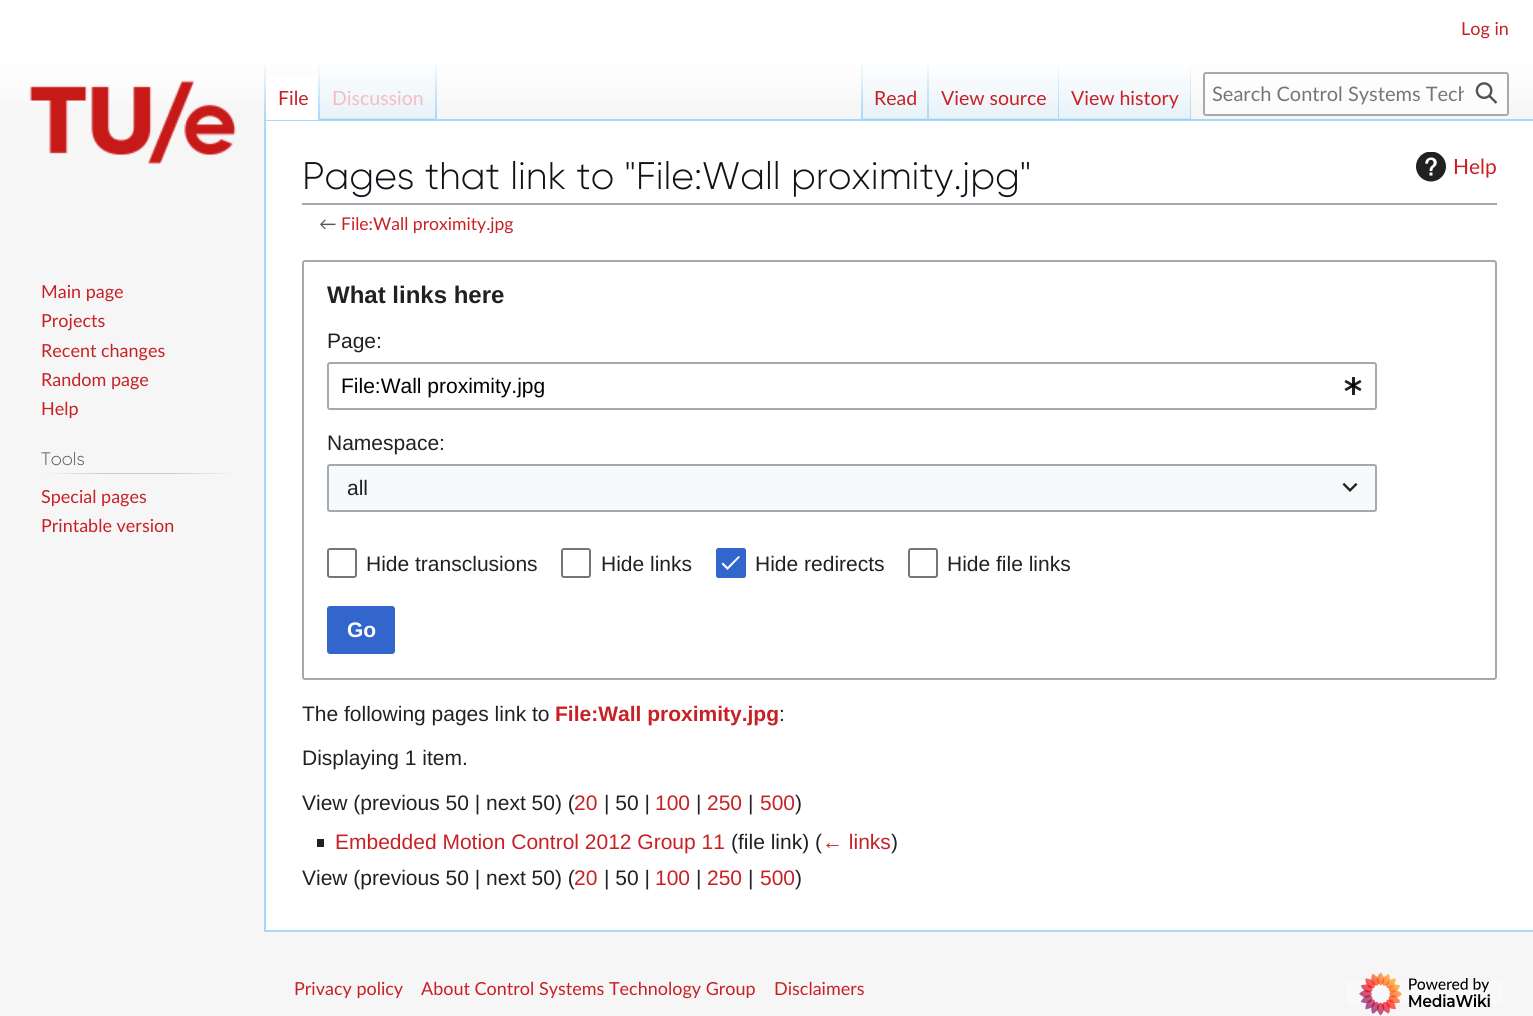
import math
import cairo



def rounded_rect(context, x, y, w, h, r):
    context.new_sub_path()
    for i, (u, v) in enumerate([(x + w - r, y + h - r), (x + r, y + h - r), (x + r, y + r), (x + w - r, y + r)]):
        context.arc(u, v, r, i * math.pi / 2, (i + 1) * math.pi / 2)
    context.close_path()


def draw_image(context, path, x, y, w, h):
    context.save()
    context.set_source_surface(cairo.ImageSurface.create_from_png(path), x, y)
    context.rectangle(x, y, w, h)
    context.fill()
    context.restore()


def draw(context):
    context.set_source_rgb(246 / 255, 246 / 255, 246 / 255)
    context.paint()
    gradient = cairo.LinearGradient(767, 0, 767, 120)
    gradient.add_color_stop_rgba(0.5, 1, 1, 1, 1)
    gradient.add_color_stop_rgba(1, 246 / 255, 246 / 255, 246 / 255, 1)
    context.set_source(gradient)
    context.rectangle(0, 0, 1533, 103)
    context.fill()
    context.set_source_rgb(167 / 255, 215 / 255, 249 / 255)
    context.rectangle(264, 119, 1269, 2)
    context.fill()
    context.rectangle(264, 930, 1269, 2)
    context.fill()
    context.rectangle(264, 119, 2, 813)
    context.fill()
    gradient = cairo.LinearGradient(265, 60, 265, 120)
    gradient.add_color_stop_rgba(0, 167 / 255, 215 / 255, 249 / 255, 0)
    gradient.add_color_stop_rgba(1, 167 / 255, 215 / 255, 249 / 255, 1)
    context.set_source(gradient)
    context.rectangle(264, 60, 2, 60)
    context.fill()
    context.set_source_rgb(1, 1, 1)
    context.rectangle(266, 77, 52, 43)
    context.fill()
    gradient = cairo.LinearGradient(319, 60, 319, 120)
    gradient.add_color_stop_rgba(0, 1, 1, 1, 1)
    gradient.add_color_stop_rgba(1, 167 / 255, 215 / 255, 249 / 255, 1)
    context.set_source(gradient)
    context.rectangle(318, 60, 2, 60)
    context.fill()
    gradient = cairo.LinearGradient(378, 120, 378, 60)
    gradient.add_color_stop_rgba(0, 119 / 255, 193 / 255, 246 / 255, 1)
    gradient.add_color_stop_rgba(0.03, 232 / 255, 242 / 255, 248 / 255, 1)
    gradient.add_color_stop_rgba(1, 1, 1, 1, 1)
    context.set_source(gradient)
    context.rectangle(320, 69, 117, 51)
    context.fill()
    gradient = cairo.LinearGradient(436, 60, 436, 120)
    gradient.add_color_stop_rgba(0, 167 / 255, 215 / 255, 249 / 255, 0)
    gradient.add_color_stop_rgba(1, 167 / 255, 215 / 255, 249 / 255, 1)
    context.set_source(gradient)
    context.rectangle(435, 60, 2, 60)
    context.fill()
    gradient = cairo.LinearGradient(862, 60, 862, 120)
    gradient.add_color_stop_rgba(0, 167 / 255, 215 / 255, 249 / 255, 0)
    gradient.add_color_stop_rgba(1, 167 / 255, 215 / 255, 249 / 255, 1)
    context.set_source(gradient)
    context.rectangle(861, 60, 2, 60)
    context.fill()
    gradient = cairo.LinearGradient(896, 120, 896, 60)
    gradient.add_color_stop_rgba(0, 119 / 255, 193 / 255, 246 / 255, 1)
    gradient.add_color_stop_rgba(0.03, 232 / 255, 242 / 255, 248 / 255, 1)
    gradient.add_color_stop_rgba(1, 1, 1, 1, 1)
    context.set_source(gradient)
    context.rectangle(863, 69, 66, 51)
    context.fill()
    gradient = cairo.LinearGradient(928, 60, 928, 120)
    gradient.add_color_stop_rgba(0, 167 / 255, 215 / 255, 249 / 255, 0)
    gradient.add_color_stop_rgba(1, 167 / 255, 215 / 255, 249 / 255, 1)
    context.set_source(gradient)
    context.rectangle(927, 60, 2, 60)
    context.fill()
    gradient = cairo.LinearGradient(994, 120, 994, 60)
    gradient.add_color_stop_rgba(0, 119 / 255, 193 / 255, 246 / 255, 1)
    gradient.add_color_stop_rgba(0.03, 232 / 255, 242 / 255, 248 / 255, 1)
    gradient.add_color_stop_rgba(1, 1, 1, 1, 1)
    context.set_source(gradient)
    context.rectangle(929, 69, 130, 51)
    context.fill()
    gradient = cairo.LinearGradient(1058, 60, 1058, 120)
    gradient.add_color_stop_rgba(0, 167 / 255, 215 / 255, 249 / 255, 0)
    gradient.add_color_stop_rgba(1, 167 / 255, 215 / 255, 249 / 255, 1)
    context.set_source(gradient)
    context.rectangle(1058, 60, 1, 60)
    context.fill()
    gradient = cairo.LinearGradient(1125, 120, 1125, 60)
    gradient.add_color_stop_rgba(0, 119 / 255, 193 / 255, 246 / 255, 1)
    gradient.add_color_stop_rgba(0.03, 232 / 255, 242 / 255, 248 / 255, 1)
    gradient.add_color_stop_rgba(1, 1, 1, 1, 1)
    context.set_source(gradient)
    context.rectangle(1059, 69, 132, 51)
    context.fill()
    gradient = cairo.LinearGradient(1190, 60, 1190, 120)
    gradient.add_color_stop_rgba(0, 167 / 255, 215 / 255, 249 / 255, 0)
    gradient.add_color_stop_rgba(1, 167 / 255, 215 / 255, 249 / 255, 1)
    context.set_source(gradient)
    context.rectangle(1190, 60, 1, 60)
    context.fill()
    context.set_source_rgba(1, 1, 1, 0.5)
    rounded_rect(context, 1204, 73, 304, 42, 2)
    context.fill_preserve()
    context.set_source_rgb(162 / 255, 169 / 255, 177 / 255)
    context.stroke()
    draw_image(context, "images/1.png", 1475, 82, 23, 22)
    draw_image(context, "images/2.png", 29, 80, 207, 84)
    gradient = cairo.LinearGradient(41, 473, 237, 473)
    gradient.add_color_stop_rgba(0, 246 / 255, 246 / 255, 246 / 255, 1)
    gradient.add_color_stop_rgba(0.33, 200 / 255, 204 / 255, 209 / 255, 1)
    gradient.add_color_stop_rgba(0.66, 200 / 255, 204 / 255, 209 / 255, 1)
    gradient.add_color_stop_rgba(1, 246 / 255, 246 / 255, 246 / 255, 1)
    context.set_source(gradient)
    context.rectangle(41, 473, 196, 1)
    context.fill()
    context.set_source_rgb(1, 1, 1)
    context.rectangle(266, 121, 1267, 809)
    context.fill()
    context.set_source_rgb(162 / 255, 169 / 255, 177 / 255)
    context.rectangle(302, 203, 1195, 2)
    context.fill()
    draw_image(context, "images/3.png", 1416, 152, 30, 30)
    rounded_rect(context, 303, 261, 1193, 418, 2)
    context.stroke()
    rounded_rect(context, 328, 363, 1048, 46, 2)
    context.stroke()
    draw_image(context, "images/4.png", 1344, 377, 18, 18)
    context.set_source_rgb(248 / 255, 249 / 255, 250 / 255)
    context.rectangle(327, 464, 1050, 48)
    context.fill()
    rounded_rect(context, 328, 465, 1048, 46, 2)
    context.set_source_rgb(162 / 255, 169 / 255, 177 / 255)
    context.stroke()
    draw_image(context, "images/5.png", 1342, 483, 16, 9)
    rounded_rect(context, 328, 549, 28, 28, 2)
    context.set_source_rgb(114 / 255, 119 / 255, 125 / 255)
    context.stroke()
    rounded_rect(context, 562, 549, 28, 28, 2)
    context.stroke()
    context.set_source_rgb(51 / 255, 102 / 255, 204 / 255)
    rounded_rect(context, 716, 548, 30, 30, 3)
    context.fill()
    context.set_source_rgb(1, 1, 1)
    context.new_path()
    context.move_to(727.5, 567)
    context.line_to(723, 562.5)
    context.line_to(721.5, 564)
    context.line_to(727.5, 570)
    context.line_to(740, 557)
    context.line_to(738.5, 556)
    context.close_path()
    context.fill()
    rounded_rect(context, 717, 549, 28, 28, 2)
    context.set_source_rgb(51 / 255, 102 / 255, 204 / 255)
    context.stroke()
    rounded_rect(context, 909, 549, 28, 28, 2)
    context.set_source_rgb(114 / 255, 119 / 255, 125 / 255)
    context.stroke()
    context.set_source_rgb(51 / 255, 102 / 255, 204 / 255)
    rounded_rect(context, 328, 607, 66, 46, 2)
    context.fill_preserve()
    context.stroke()
    context.set_source_rgb(32 / 255, 33 / 255, 34 / 255)
    context.rectangle(317, 839, 7, 8)
    context.fill()
    context.set_source_rgb(248 / 255, 249 / 255, 250 / 255)
    context.rectangle(1347, 981, 156, 23)
    context.fill()
    draw_image(context, "images/6.png", 1359, 972, 131, 44)
    context.select_font_face("Lato")
    context.set_font_size(18)
    context.set_source_rgb(199 / 255, 33 / 255, 37 / 255)
    context.move_to(1461, 35)
    context.show_text("Log in")
    context.set_font_size(19.5)
    context.move_to(278, 105)
    context.show_text("File")
    context.set_source_rgb(245 / 255, 189 / 255, 191 / 255)
    context.move_to(332, 105)
    context.show_text("Discussion")
    context.set_source_rgb(199 / 255, 33 / 255, 37 / 255)
    context.move_to(874, 105)
    context.show_text("Read")
    context.move_to(941, 105)
    context.show_text("View source")
    context.move_to(1071, 105)
    context.show_text("View history")
    context.save()
    context.rectangle(1212, 81, 252, 24)
    context.clip()
    context.set_font_size(20)
    context.set_source_rgb(114 / 255, 119 / 255, 125 / 255)
    context.move_to(1212, 101)
    context.show_text("Search Control Systems Tech")
    context.restore()
    context.set_font_size(18)
    context.move_to(41, 298)
    context.show_text("Main page")
    context.move_to(41, 327)
    context.show_text("Projects")
    context.move_to(41, 357)
    context.show_text("Recent changes")
    context.move_to(41, 386)
    context.show_text("Random page")
    context.move_to(41, 415)
    context.show_text("Help")
    context.select_font_face("Gilroy Light")
    context.set_source_rgb(84 / 255, 89 / 255, 93 / 255)
    context.move_to(41, 465)
    context.show_text("Tools")
    context.select_font_face("Lato")
    context.set_source_rgb(199 / 255, 33 / 255, 37 / 255)
    context.move_to(41, 503)
    context.show_text("Special pages")
    context.move_to(41, 532)
    context.show_text("Printable version")
    context.select_font_face("Gilroy Light")
    context.set_font_size(38.4)
    context.set_source_rgb(16 / 255, 20 / 255, 24 / 255)
    context.move_to(302, 189)
    context.show_text("Pages that link to \"File:Wall proximity.jpg\"")
    context.select_font_face("Lato")
    context.set_font_size(21)
    context.set_source_rgb(199 / 255, 33 / 255, 37 / 255)
    context.move_to(1453, 174)
    context.show_text("Help")
    context.set_font_size(17.6)
    context.set_source_rgb(84 / 255, 89 / 255, 93 / 255)
    context.move_to(319, 230)
    context.show_text("←")
    context.set_source_rgb(199 / 255, 33 / 255, 37 / 255)
    context.move_to(341, 230)
    context.show_text("File:Wall proximity.jpg")
    context.select_font_face("Liberation Sans", cairo.FontSlant.NORMAL, cairo.FontWeight.BOLD)
    context.set_font_size(24)
    context.set_source_rgb(32 / 255, 33 / 255, 34 / 255)
    context.move_to(327, 303)
    context.show_text("What links here")
    context.select_font_face("Liberation Sans")
    context.set_font_size(21)
    context.move_to(327, 348)
    context.show_text("Page:")
    context.set_source_rgb(0, 0, 0)
    context.move_to(341, 393)
    context.show_text("File:Wall proximity.jpg")
    context.set_source_rgb(32 / 255, 33 / 255, 34 / 255)
    context.move_to(327, 450)
    context.show_text("Namespace:")
    context.move_to(347, 495)
    context.show_text("all")
    context.move_to(366, 571)
    context.show_text("Hide transclusions")
    context.move_to(601, 571)
    context.show_text("Hide links")
    context.move_to(755, 571)
    context.show_text("Hide redirects")
    context.move_to(947, 571)
    context.show_text("Hide file links")
    context.select_font_face("Liberation Sans", cairo.FontSlant.NORMAL, cairo.FontWeight.BOLD)
    context.set_source_rgb(1, 1, 1)
    context.move_to(347, 637)
    context.show_text("Go")
    context.select_font_face("Liberation Sans")
    context.set_source_rgb(32 / 255, 33 / 255, 34 / 255)
    context.move_to(302, 721)
    context.show_text("The following pages link to")
    context.select_font_face("Liberation Sans", cairo.FontSlant.NORMAL, cairo.FontWeight.BOLD)
    context.set_source_rgb(199 / 255, 33 / 255, 37 / 255)
    context.move_to(555, 721)
    context.show_text("File:Wall proximity.jpg")
    context.select_font_face("Liberation Sans")
    context.set_source_rgb(32 / 255, 33 / 255, 34 / 255)
    context.move_to(779, 721)
    context.show_text(":")
    context.move_to(302, 765)
    context.show_text("Displaying 1 item.")
    context.move_to(302, 810)
    context.show_text("View (previous 50 | next 50) (")
    context.set_source_rgb(199 / 255, 33 / 255, 37 / 255)
    context.move_to(574, 810)
    context.show_text("20")
    context.set_source_rgb(32 / 255, 33 / 255, 34 / 255)
    context.move_to(604, 810)
    context.show_text("| 50 |")
    context.set_source_rgb(199 / 255, 33 / 255, 37 / 255)
    context.move_to(655, 810)
    context.show_text("100")
    context.set_source_rgb(32 / 255, 33 / 255, 34 / 255)
    context.move_to(696, 810)
    context.show_text("|")
    context.set_source_rgb(199 / 255, 33 / 255, 37 / 255)
    context.move_to(707, 810)
    context.show_text("250")
    context.set_source_rgb(32 / 255, 33 / 255, 34 / 255)
    context.move_to(748, 810)
    context.show_text("|")
    context.set_source_rgb(199 / 255, 33 / 255, 37 / 255)
    context.move_to(760, 810)
    context.show_text("500")
    context.set_source_rgb(32 / 255, 33 / 255, 34 / 255)
    context.move_to(795, 810)
    context.show_text(")")
    context.set_source_rgb(199 / 255, 33 / 255, 37 / 255)
    context.move_to(335, 849)
    context.show_text("Embedded Motion Control 2012 Group 11")
    context.set_source_rgb(32 / 255, 33 / 255, 34 / 255)
    context.move_to(731, 849)
    context.show_text("(file link) (")
    context.set_source_rgb(199 / 255, 33 / 255, 37 / 255)
    context.move_to(822, 849)
    context.show_text("← links")
    context.set_source_rgb(32 / 255, 33 / 255, 34 / 255)
    context.move_to(891, 849)
    context.show_text(")")
    context.move_to(302, 885)
    context.show_text("View (previous 50 | next 50) (")
    context.set_source_rgb(199 / 255, 33 / 255, 37 / 255)
    context.move_to(574, 885)
    context.show_text("20")
    context.set_source_rgb(32 / 255, 33 / 255, 34 / 255)
    context.move_to(604, 885)
    context.show_text("| 50 |")
    context.set_source_rgb(199 / 255, 33 / 255, 37 / 255)
    context.move_to(655, 885)
    context.show_text("100")
    context.set_source_rgb(32 / 255, 33 / 255, 34 / 255)
    context.move_to(696, 885)
    context.show_text("|")
    context.set_source_rgb(199 / 255, 33 / 255, 37 / 255)
    context.move_to(707, 885)
    context.show_text("250")
    context.set_source_rgb(32 / 255, 33 / 255, 34 / 255)
    context.move_to(748, 885)
    context.show_text("|")
    context.set_source_rgb(199 / 255, 33 / 255, 37 / 255)
    context.move_to(760, 885)
    context.show_text("500")
    context.set_source_rgb(32 / 255, 33 / 255, 34 / 255)
    context.move_to(795, 885)
    context.show_text(")")
    context.select_font_face("Lato")
    context.set_font_size(18)
    context.set_source_rgb(199 / 255, 33 / 255, 37 / 255)
    context.move_to(294, 995)
    context.show_text("Privacy policy")
    context.move_to(421, 995)
    context.show_text("About Control Systems Technology Group")
    context.move_to(774, 995)
    context.show_text("Disclaimers")


surface = cairo.ImageSurface(cairo.Format.RGB24, 1533, 1016)
context = cairo.Context(surface)
options = cairo.FontOptions()
options.set_hint_metrics(cairo.HintMetrics.OFF)
options.set_hint_style(cairo.HintStyle.NONE)
context.set_font_options(options)
context.set_miter_limit(4)
draw(context)
surface.write_to_png("out.png")
